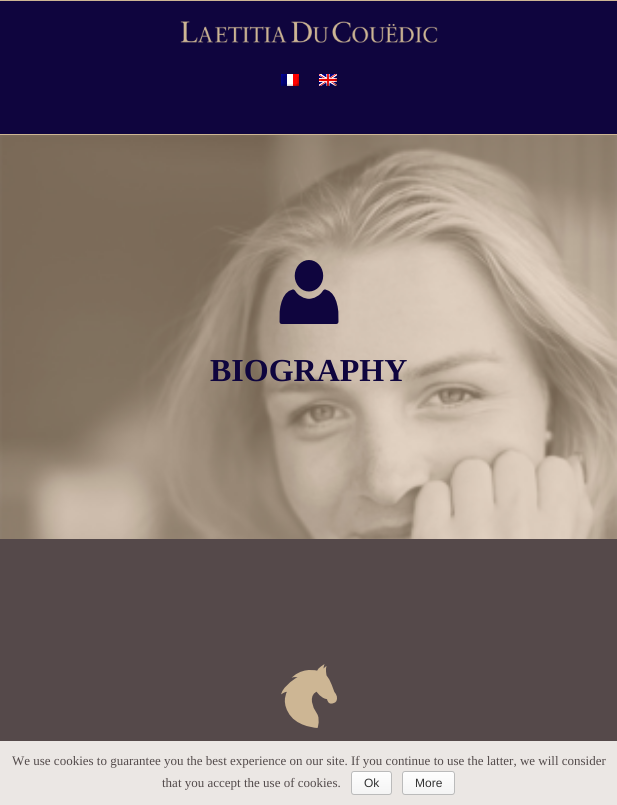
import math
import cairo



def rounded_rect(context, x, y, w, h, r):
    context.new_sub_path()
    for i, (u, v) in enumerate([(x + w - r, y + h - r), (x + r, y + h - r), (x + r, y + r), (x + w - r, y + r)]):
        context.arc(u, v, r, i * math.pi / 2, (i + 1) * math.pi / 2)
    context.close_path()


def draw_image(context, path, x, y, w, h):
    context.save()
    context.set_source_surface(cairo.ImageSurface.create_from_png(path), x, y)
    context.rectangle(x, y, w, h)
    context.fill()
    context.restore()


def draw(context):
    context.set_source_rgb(85 / 255, 73 / 255, 74 / 255)
    context.paint()
    context.set_source_rgb(15 / 255, 5 / 255, 62 / 255)
    context.rectangle(0, 1, 617, 133)
    context.fill()
    context.set_source_rgb(205 / 255, 182 / 255, 148 / 255)
    context.rectangle(0, 0, 617, 1)
    context.fill()
    context.rectangle(0, 134, 617, 1)
    context.fill()
    draw_image(context, "images/1.png", 180, 21, 258, 22)
    draw_image(context, "images/2.png", 281, 74, 18, 12)
    draw_image(context, "images/3.png", 319, 74, 18, 12)
    draw_image(context, "images/4.png", 0, 135, 617, 404)
    draw_image(context, "images/5.png", 279, 260, 60, 64)
    draw_image(context, "images/6.png", 281, 664, 56, 64)
    context.set_source_rgb(235 / 255, 231 / 255, 228 / 255)
    context.rectangle(0, 741, 617, 64)
    context.fill()
    context.save()
    rounded_rect(context, 351, 771, 41, 24, 3)
    context.clip()
    gradient = cairo.LinearGradient(372, 772, 372, 794)
    gradient.add_color_stop_rgba(0, 254 / 255, 254 / 255, 254 / 255, 1)
    gradient.add_color_stop_rgba(1, 244 / 255, 244 / 255, 244 / 255, 1)
    context.set_source(gradient)
    context.rectangle(351, 772, 41, 22)
    context.fill()
    context.restore()
    rounded_rect(context, 351.5, 771.5, 40, 23, 2.5)
    context.set_source_rgb(187 / 255, 187 / 255, 187 / 255)
    context.set_line_width(1)
    context.stroke()
    context.save()
    rounded_rect(context, 402, 771, 53, 24, 3)
    context.clip()
    gradient = cairo.LinearGradient(429, 772, 429, 794)
    gradient.add_color_stop_rgba(0, 254 / 255, 254 / 255, 254 / 255, 1)
    gradient.add_color_stop_rgba(1, 244 / 255, 244 / 255, 244 / 255, 1)
    context.set_source(gradient)
    context.rectangle(402, 772, 53, 22)
    context.fill()
    context.restore()
    rounded_rect(context, 402.5, 771.5, 52, 23, 2.5)
    context.stroke()
    context.select_font_face("Liberation Serif", cairo.FontSlant.NORMAL, cairo.FontWeight.BOLD)
    context.set_font_size(32)
    context.set_source_rgb(15 / 255, 5 / 255, 62 / 255)
    context.move_to(210, 381)
    context.show_text("BIOGRAPHY")
    context.select_font_face("Liberation Serif")
    context.set_font_size(13)
    context.set_source_rgb(83 / 255, 75 / 255, 75 / 255)
    context.move_to(12, 765)
    context.show_text("We use cookies to guarantee you the best experience on our site. If you continue to use the latter, we will consider")
    context.move_to(162, 787)
    context.show_text("that you accept the use of cookies.")
    context.select_font_face("Liberation Sans")
    context.set_font_size(12)
    context.set_source_rgb(51 / 255, 51 / 255, 51 / 255)
    context.move_to(364, 787)
    context.show_text("Ok")
    context.move_to(415, 787)
    context.show_text("More")


surface = cairo.ImageSurface(cairo.Format.RGB24, 617, 805)
context = cairo.Context(surface)
options = cairo.FontOptions()
options.set_hint_metrics(cairo.HintMetrics.OFF)
options.set_hint_style(cairo.HintStyle.NONE)
context.set_font_options(options)
context.set_miter_limit(4)
draw(context)
surface.write_to_png("out.png")
